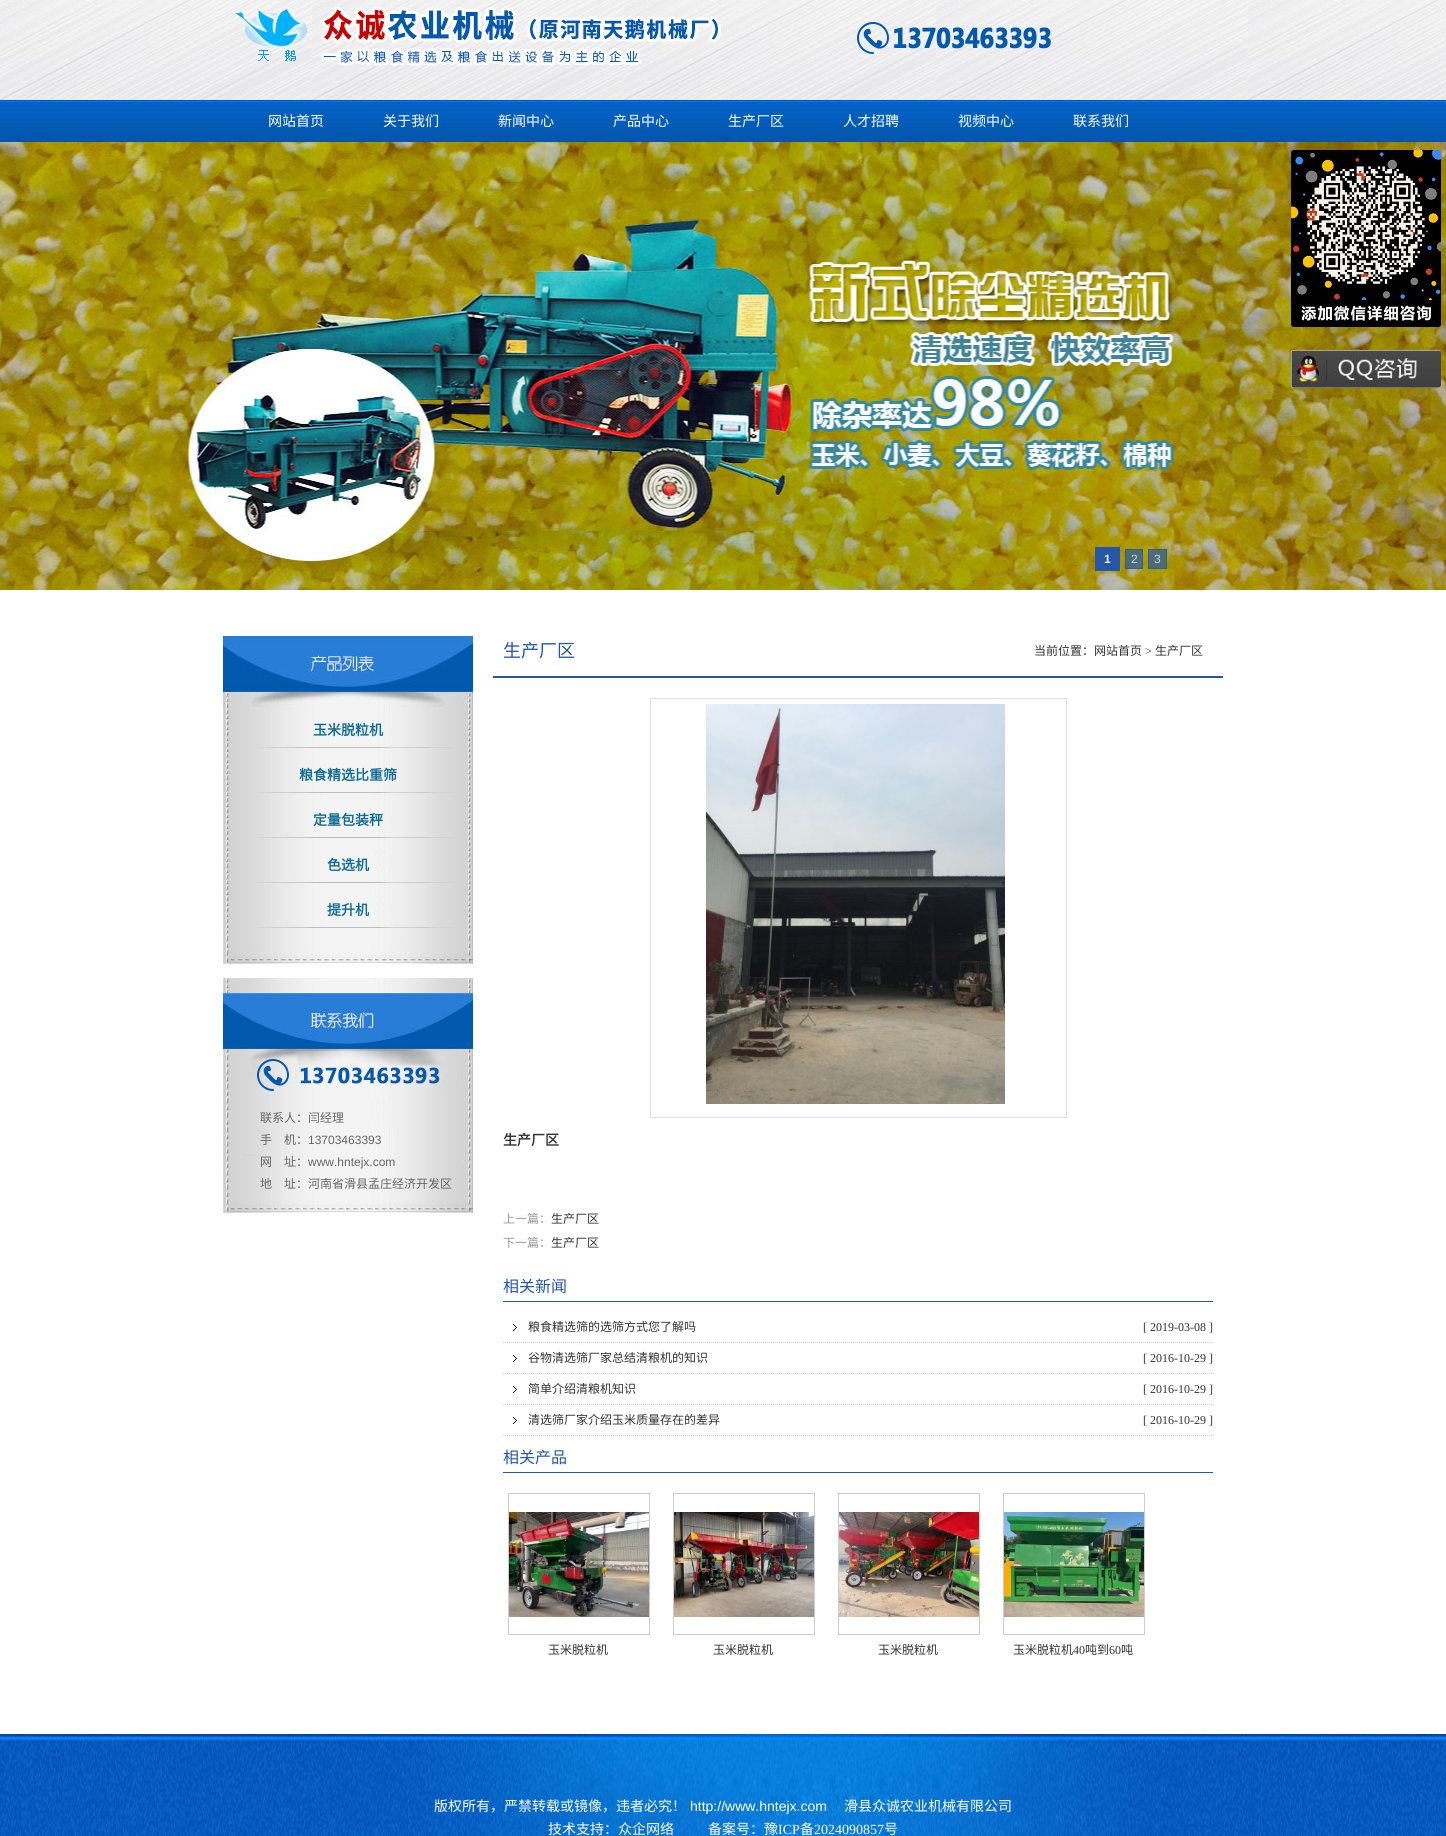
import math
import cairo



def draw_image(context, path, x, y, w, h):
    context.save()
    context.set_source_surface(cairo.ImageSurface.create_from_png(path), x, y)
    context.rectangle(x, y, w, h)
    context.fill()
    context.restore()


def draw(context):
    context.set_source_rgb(1, 1, 1)
    context.paint()
    draw_image(context, "images/1.png", 0, 0, 1446, 100)
    draw_image(context, "images/2.png", 235, 6, 486, 60)
    draw_image(context, "images/3.png", 857, 22, 194, 32)
    draw_image(context, "images/4.png", 0, 100, 1446, 42)
    draw_image(context, "images/7.png", 0, 142, 1446, 448)
    draw_image(context, "images/5.png", 1291, 150, 150, 177)
    draw_image(context, "images/6.png", 1291, 350, 150, 38)
    context.set_source_rgb(36 / 255, 87 / 255, 169 / 255)
    context.rectangle(1095, 547, 25, 24)
    context.fill()
    context.set_source_rgba(36 / 255, 87 / 255, 169 / 255, 0.7)
    context.rectangle(1125, 549, 18, 20)
    context.fill()
    context.rectangle(1125.5, 549.5, 17, 19)
    context.set_line_width(1)
    context.stroke()
    context.rectangle(1148, 549, 19, 20)
    context.fill()
    context.rectangle(1148.5, 549.5, 18, 19)
    context.stroke()
    draw_image(context, "images/8.png", 223, 707, 250, 286)
    draw_image(context, "images/9.png", 223, 636, 250, 71)
    draw_image(context, "images/10.png", 225, 708, 246, 225)
    draw_image(context, "images/11.png", 257, 716, 196, 32)
    draw_image(context, "images/12.png", 257, 764, 196, 29)
    draw_image(context, "images/11.png", 257, 806, 196, 32)
    draw_image(context, "images/13.png", 257, 850, 196, 33)
    draw_image(context, "images/14.png", 257, 900, 196, 28)
    draw_image(context, "images/15.png", 223, 933, 250, 45)
    draw_image(context, "images/16.png", 223, 993, 250, 220)
    context.set_source_rgb(36 / 255, 87 / 255, 169 / 255)
    context.rectangle(493, 676, 730, 2)
    context.fill()
    context.rectangle(650.5, 698.5, 416, 419)
    context.set_source_rgb(222 / 255, 222 / 255, 222 / 255)
    context.stroke()
    draw_image(context, "images/17.png", 706, 704, 299, 400)
    context.set_source_rgb(36 / 255, 87 / 255, 169 / 255)
    context.rectangle(503, 1301, 710, 1)
    context.fill()
    context.new_path()
    context.move_to(503, 1342.5)
    context.line_to(1213, 1342.5)
    context.set_source_rgb(204 / 255, 204 / 255, 204 / 255)
    context.set_dash([1, 1])
    context.stroke()
    draw_image(context, "images/18.png", 513, 1324, 4, 7)
    context.new_path()
    context.move_to(503, 1373.5)
    context.line_to(1213, 1373.5)
    context.stroke()
    draw_image(context, "images/18.png", 513, 1355, 4, 7)
    context.new_path()
    context.move_to(503, 1404.5)
    context.line_to(1213, 1404.5)
    context.stroke()
    draw_image(context, "images/18.png", 513, 1386, 4, 7)
    context.new_path()
    context.move_to(503, 1435.5)
    context.line_to(1213, 1435.5)
    context.stroke()
    draw_image(context, "images/18.png", 513, 1417, 4, 7)
    context.set_source_rgb(36 / 255, 87 / 255, 169 / 255)
    context.rectangle(503, 1472, 710, 1)
    context.fill()
    context.rectangle(508.5, 1493.5, 141, 141)
    context.set_source_rgb(204 / 255, 204 / 255, 204 / 255)
    context.set_dash([])
    context.stroke()
    draw_image(context, "images/19.png", 509, 1512, 140, 105)
    context.rectangle(673.5, 1493.5, 141, 141)
    context.stroke()
    draw_image(context, "images/20.png", 674, 1512, 140, 105)
    context.rectangle(838.5, 1493.5, 141, 141)
    context.stroke()
    draw_image(context, "images/21.png", 839, 1512, 140, 105)
    context.rectangle(1003.5, 1493.5, 141, 141)
    context.stroke()
    draw_image(context, "images/22.png", 1004, 1512, 140, 105)
    draw_image(context, "images/23.png", 0, 1734, 1446, 102)
    context.select_font_face("Noto Sans CJK SC")
    context.set_font_size(14)
    context.set_source_rgb(1, 1, 1)
    context.move_to(268, 126)
    context.show_text("网站首页")
    context.move_to(383, 126)
    context.show_text("关于我们")
    context.move_to(498, 126)
    context.show_text("新闻中心")
    context.move_to(613, 126)
    context.show_text("产品中心")
    context.move_to(728, 126)
    context.show_text("生产厂区")
    context.move_to(843, 126)
    context.show_text("人才招聘")
    context.move_to(958, 126)
    context.show_text("视频中心")
    context.move_to(1073, 126)
    context.show_text("联系我们")
    context.select_font_face("Liberation Sans", cairo.FontSlant.NORMAL, cairo.FontWeight.BOLD)
    context.set_font_size(12)
    context.move_to(1104, 563)
    context.show_text("1")
    context.select_font_face("Liberation Sans")
    context.set_source_rgb(201 / 255, 211 / 255, 215 / 255)
    context.move_to(1131, 563)
    context.show_text("2")
    context.move_to(1154, 563)
    context.show_text("3")
    context.select_font_face("Noto Sans CJK SC", cairo.FontSlant.NORMAL, cairo.FontWeight.BOLD)
    context.set_font_size(14)
    context.set_source_rgb(13 / 255, 106 / 255, 151 / 255)
    context.move_to(313, 735)
    context.show_text("玉米脱粒机")
    context.move_to(299, 780)
    context.show_text("粮食精选比重筛")
    context.move_to(313, 825)
    context.show_text("定量包装秤")
    context.move_to(327, 870)
    context.show_text("色选机")
    context.move_to(327, 915)
    context.show_text("提升机")
    context.select_font_face("Noto Sans CJK SC")
    context.set_font_size(12)
    context.set_source_rgb(101 / 255, 101 / 255, 101 / 255)
    context.move_to(260, 1122)
    context.show_text("联系人：闫经理")
    context.move_to(260, 1144)
    context.show_text("手　机：")
    context.select_font_face("Liberation Sans")
    context.move_to(308, 1144)
    context.show_text("13703463393")
    context.select_font_face("Noto Sans CJK SC")
    context.move_to(260, 1166)
    context.show_text("网　址：")
    context.select_font_face("Liberation Sans")
    context.move_to(308, 1166)
    context.show_text("www.hntejx.com")
    context.select_font_face("Noto Sans CJK SC")
    context.move_to(260, 1188)
    context.show_text("地　址：河南省滑县孟庄经济开发区")
    context.set_font_size(18)
    context.set_source_rgb(36 / 255, 87 / 255, 169 / 255)
    context.move_to(503, 657)
    context.show_text("生产厂区")
    context.set_font_size(12)
    context.set_source_rgb(51 / 255, 51 / 255, 51 / 255)
    context.move_to(1034, 655)
    context.show_text("当前位置：网站首页")
    context.select_font_face("Liberation Serif")
    context.move_to(1145, 655)
    context.show_text(">")
    context.select_font_face("Noto Sans CJK SC")
    context.move_to(1155, 655)
    context.show_text("生产厂区")
    context.select_font_face("Noto Sans CJK SC", cairo.FontSlant.NORMAL, cairo.FontWeight.BOLD)
    context.set_font_size(14)
    context.move_to(503, 1145)
    context.show_text("生产厂区")
    context.select_font_face("Noto Sans CJK SC")
    context.set_font_size(12)
    context.set_source_rgb(153 / 255, 153 / 255, 153 / 255)
    context.move_to(503, 1223)
    context.show_text("上一篇：")
    context.set_source_rgb(51 / 255, 51 / 255, 51 / 255)
    context.move_to(551, 1223)
    context.show_text("生产厂区")
    context.set_source_rgb(153 / 255, 153 / 255, 153 / 255)
    context.move_to(503, 1247)
    context.show_text("下一篇：")
    context.set_source_rgb(51 / 255, 51 / 255, 51 / 255)
    context.move_to(551, 1247)
    context.show_text("生产厂区")
    context.set_font_size(16)
    context.set_source_rgb(36 / 255, 87 / 255, 169 / 255)
    context.move_to(503, 1292)
    context.show_text("相关新闻")
    context.set_font_size(12)
    context.set_source_rgb(51 / 255, 51 / 255, 51 / 255)
    context.move_to(528, 1331)
    context.show_text("粮食精选筛的选筛方式您了解吗")
    context.select_font_face("Liberation Serif")
    context.move_to(1143, 1331)
    context.show_text("[ 2019-03-08 ]")
    context.select_font_face("Noto Sans CJK SC")
    context.move_to(528, 1362)
    context.show_text("谷物清选筛厂家总结清粮机的知识")
    context.select_font_face("Liberation Serif")
    context.move_to(1143, 1362)
    context.show_text("[ 2016-10-29 ]")
    context.select_font_face("Noto Sans CJK SC")
    context.move_to(528, 1393)
    context.show_text("简单介绍清粮机知识")
    context.select_font_face("Liberation Serif")
    context.move_to(1143, 1393)
    context.show_text("[ 2016-10-29 ]")
    context.select_font_face("Noto Sans CJK SC")
    context.move_to(528, 1424)
    context.show_text("清选筛厂家介绍玉米质量存在的差异")
    context.select_font_face("Liberation Serif")
    context.move_to(1143, 1424)
    context.show_text("[ 2016-10-29 ]")
    context.select_font_face("Noto Sans CJK SC")
    context.set_font_size(16)
    context.set_source_rgb(36 / 255, 87 / 255, 169 / 255)
    context.move_to(503, 1463)
    context.show_text("相关产品")
    context.set_font_size(12)
    context.set_source_rgb(51 / 255, 51 / 255, 51 / 255)
    context.move_to(548, 1654)
    context.show_text("玉米脱粒机")
    context.move_to(713, 1654)
    context.show_text("玉米脱粒机")
    context.move_to(878, 1654)
    context.show_text("玉米脱粒机")
    context.move_to(1013, 1654)
    context.show_text("玉米脱粒机")
    context.select_font_face("Liberation Serif")
    context.move_to(1073, 1654)
    context.show_text("40")
    context.select_font_face("Noto Sans CJK SC")
    context.move_to(1085, 1654)
    context.show_text("吨到")
    context.select_font_face("Liberation Serif")
    context.move_to(1109, 1654)
    context.show_text("60")
    context.select_font_face("Noto Sans CJK SC")
    context.move_to(1121, 1654)
    context.show_text("吨")
    context.set_font_size(14)
    context.set_source_rgb(1, 1, 1)
    context.move_to(434, 1811)
    context.show_text("版权所有，严禁转载或镜像，违者必究！")
    context.select_font_face("Liberation Sans")
    context.move_to(690, 1811)
    context.show_text("http://www.hntejx.com")
    context.select_font_face("Noto Sans CJK SC")
    context.move_to(844, 1811)
    context.show_text("滑县众诚农业机械有限公司")
    context.move_to(548, 1834)
    context.show_text("技术支持：众企网络")
    context.move_to(708, 1834)
    context.show_text("备案号：豫")
    context.select_font_face("Liberation Serif")
    context.move_to(778, 1834)
    context.show_text("ICP")
    context.select_font_face("Noto Sans CJK SC")
    context.move_to(800, 1834)
    context.show_text("备")
    context.select_font_face("Liberation Serif")
    context.move_to(814, 1834)
    context.show_text("2024090857")
    context.select_font_face("Noto Sans CJK SC")
    context.move_to(884, 1834)
    context.show_text("号")


surface = cairo.ImageSurface(cairo.Format.RGB24, 1446, 1836)
context = cairo.Context(surface)
options = cairo.FontOptions()
options.set_hint_metrics(cairo.HintMetrics.OFF)
options.set_hint_style(cairo.HintStyle.NONE)
context.set_font_options(options)
context.set_miter_limit(4)
draw(context)
surface.write_to_png("out.png")
